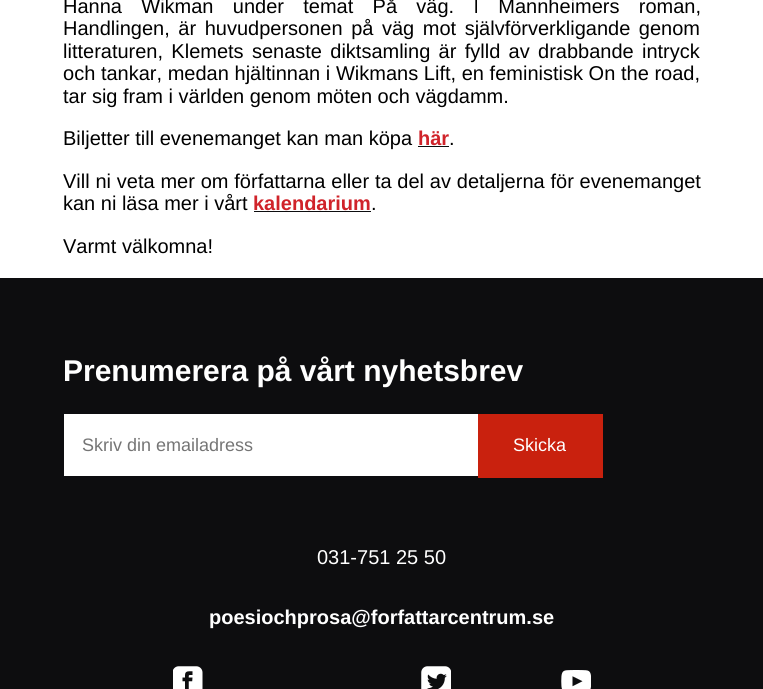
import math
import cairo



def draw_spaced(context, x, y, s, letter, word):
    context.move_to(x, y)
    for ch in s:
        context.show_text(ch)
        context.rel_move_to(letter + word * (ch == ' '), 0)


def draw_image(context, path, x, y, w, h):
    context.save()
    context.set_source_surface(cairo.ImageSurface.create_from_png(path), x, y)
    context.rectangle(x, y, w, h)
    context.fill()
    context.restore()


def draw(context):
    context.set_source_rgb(1, 1, 1)
    context.paint()
    context.set_source_rgb(13 / 255, 13 / 255, 15 / 255)
    context.rectangle(418, 146, 31, 1)
    context.fill()
    context.rectangle(254, 211, 117, 1)
    context.fill()
    context.rectangle(0, 278, 763, 411)
    context.fill()
    context.set_source_rgb(1, 1, 1)
    context.rectangle(64, 414, 414, 62)
    context.fill()
    context.set_source_rgb(201 / 255, 33 / 255, 14 / 255)
    context.rectangle(478, 414, 125, 64)
    context.fill()
    draw_image(context, "images/1.png", 173, 666, 30, 23)
    draw_image(context, "images/2.png", 421, 666, 30, 23)
    draw_image(context, "images/3.png", 561, 670, 30, 19)
    context.select_font_face("Liberation Sans")
    context.set_font_size(20)
    context.set_source_rgb(0, 0, 0)
    draw_spaced(context, 63, 13, "Hanna Wikman under temat På väg. I Mannheimers roman,", 0, 13.75)
    draw_spaced(context, 63, 35, "Handlingen, är huvudpersonen på väg mot självförverkligande genom", 0, 3)
    draw_spaced(context, 63, 58, "litteraturen, Klemets senaste diktsamling är fylld av drabbande intryck", 0, 2.75)
    draw_spaced(context, 63, 80, "och tankar, medan hjältinnan i Wikmans Lift, en feministisk On the road,", 0, 0.1)
    context.move_to(63, 103)
    context.show_text("tar sig fram i världen genom möten och vägdamm.")
    context.move_to(63, 145)
    context.show_text("Biljetter till evenemanget kan man köpa")
    context.select_font_face("Liberation Sans", cairo.FontSlant.NORMAL, cairo.FontWeight.BOLD)
    context.set_source_rgb(208 / 255, 35 / 255, 42 / 255)
    context.move_to(418, 145)
    context.show_text("här")
    context.select_font_face("Liberation Sans")
    context.set_source_rgb(0, 0, 0)
    context.move_to(449, 145)
    context.show_text(".")
    draw_spaced(context, 63, 188, "Vill ni veta mer om författarna eller ta del av detaljerna för evenemanget", 0, 0.25)
    context.move_to(63, 210)
    context.show_text("kan ni läsa mer i vårt")
    context.select_font_face("Liberation Sans", cairo.FontSlant.NORMAL, cairo.FontWeight.BOLD)
    context.set_source_rgb(208 / 255, 35 / 255, 42 / 255)
    context.move_to(253, 210)
    context.show_text("kalendarium")
    context.select_font_face("Liberation Sans")
    context.set_source_rgb(0, 0, 0)
    context.move_to(371, 210)
    context.show_text(".")
    context.move_to(63, 253)
    context.show_text("Varmt välkomna!")
    context.select_font_face("Liberation Sans", cairo.FontSlant.NORMAL, cairo.FontWeight.BOLD)
    context.set_font_size(30)
    context.set_source_rgb(1, 1, 1)
    context.move_to(63, 381)
    context.show_text("Prenumerera på vårt nyhetsbrev")
    context.select_font_face("Liberation Sans")
    context.set_font_size(18)
    context.set_source_rgb(117 / 255, 117 / 255, 117 / 255)
    context.move_to(82, 451)
    context.show_text("Skriv din emailadress")
    context.set_source_rgb(1, 1, 1)
    context.move_to(513, 451)
    context.show_text("Skicka")
    context.set_font_size(20)
    context.move_to(317, 564)
    context.show_text("031-751 25 50")
    context.select_font_face("Liberation Sans", cairo.FontSlant.NORMAL, cairo.FontWeight.BOLD)
    context.move_to(209, 624)
    context.show_text("poesiochprosa@forfattarcentrum.se")


surface = cairo.ImageSurface(cairo.Format.RGB24, 763, 689)
context = cairo.Context(surface)
options = cairo.FontOptions()
options.set_hint_metrics(cairo.HintMetrics.OFF)
options.set_hint_style(cairo.HintStyle.NONE)
context.set_font_options(options)
context.set_miter_limit(4)
draw(context)
surface.write_to_png("out.png")
